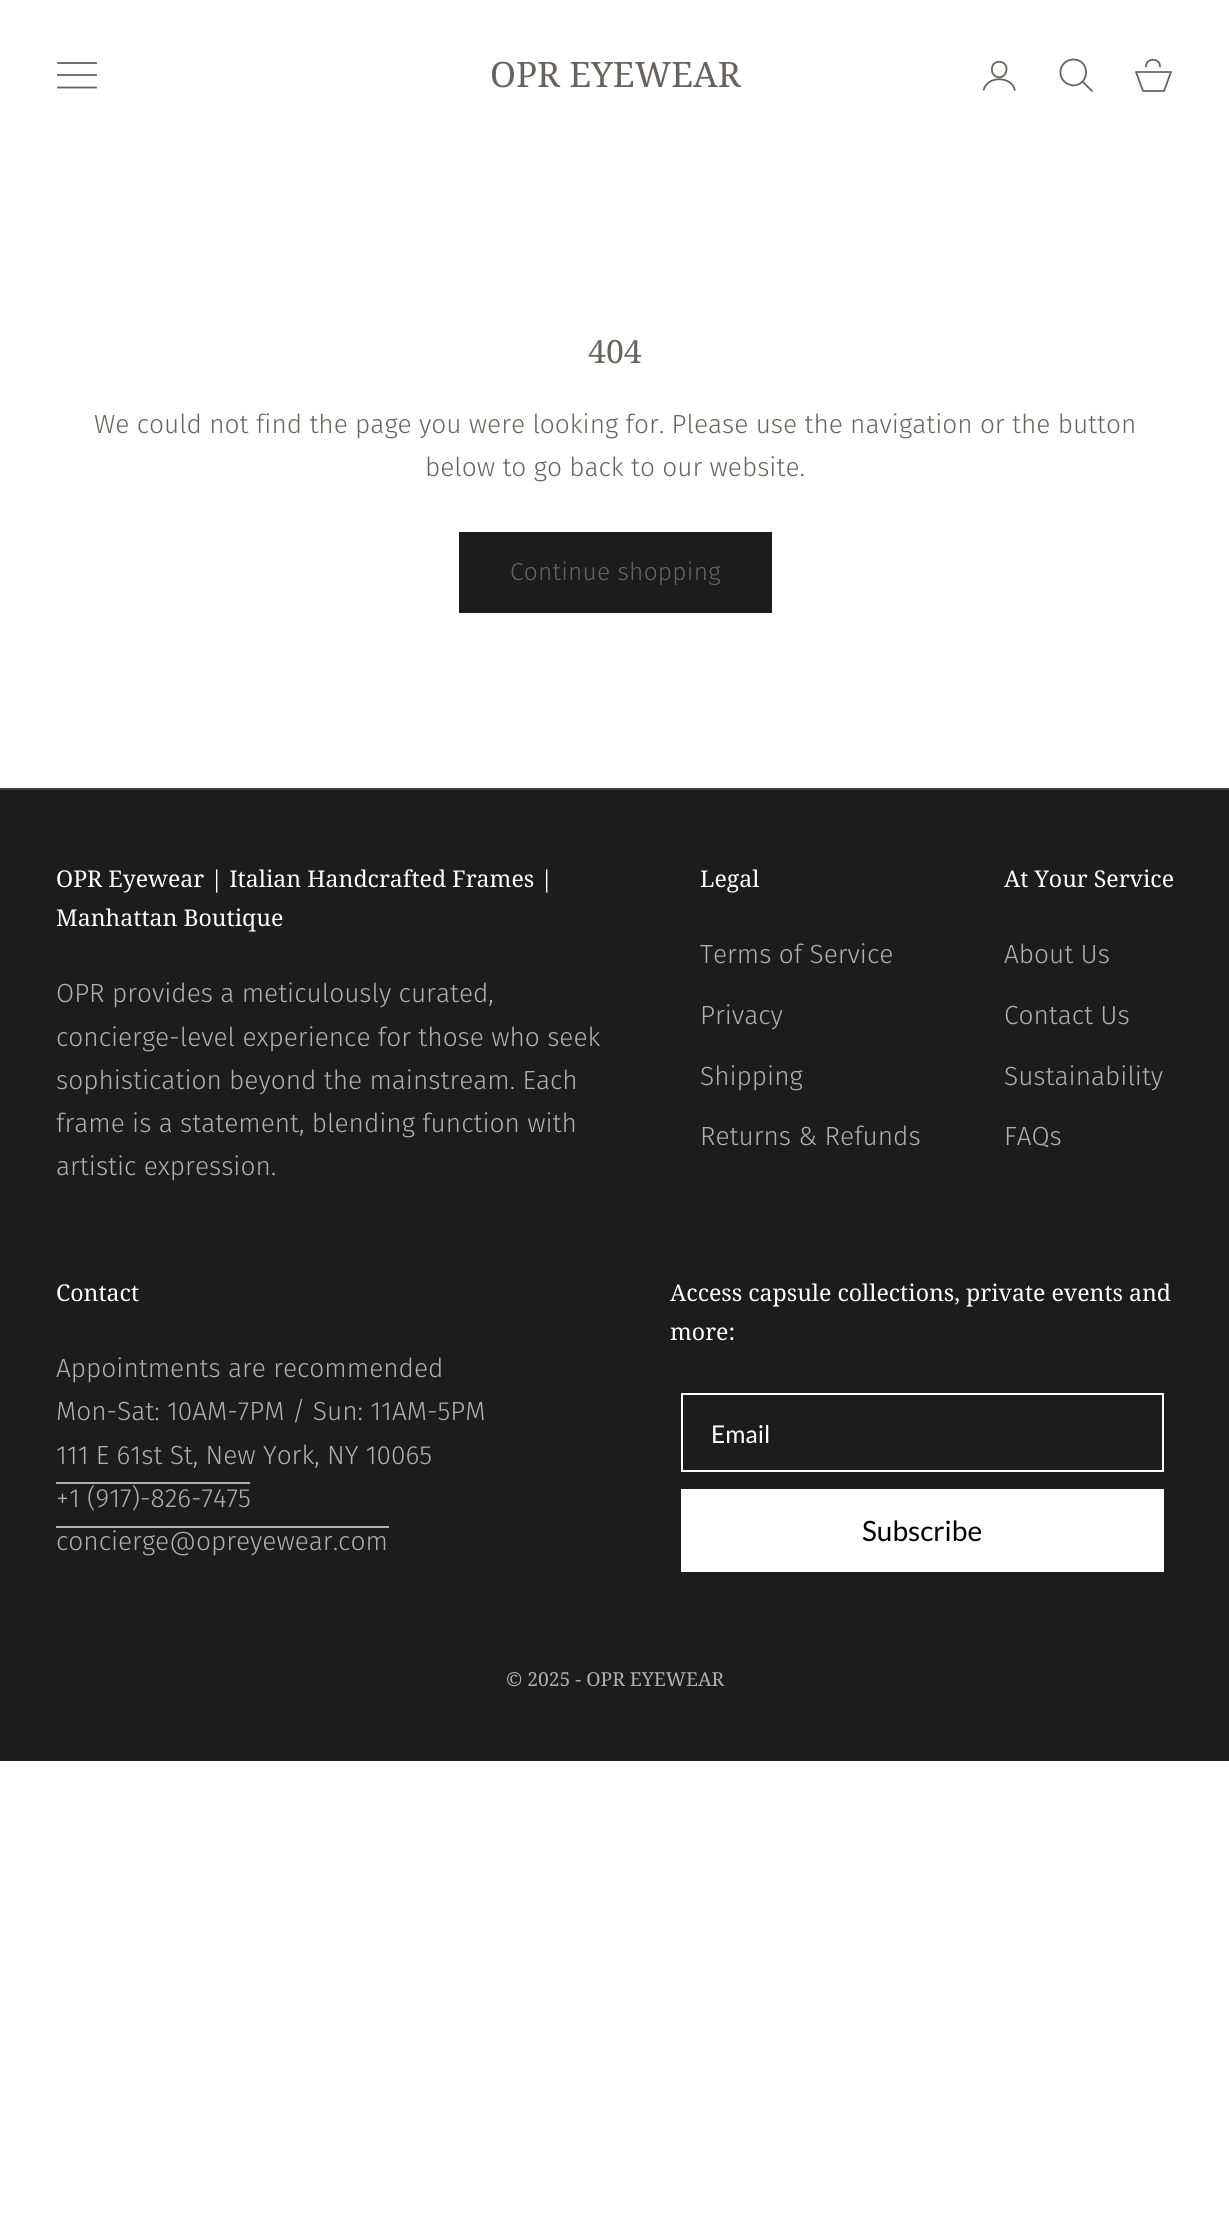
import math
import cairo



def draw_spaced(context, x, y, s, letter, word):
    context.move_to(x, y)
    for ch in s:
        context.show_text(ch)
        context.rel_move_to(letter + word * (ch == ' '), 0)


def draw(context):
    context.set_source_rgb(1, 1, 1)
    context.paint()
    context.new_path()
    context.move_to(58, 87.5)
    context.line_to(96, 87.5)
    context.move_to(58, 75)
    context.line_to(96, 75)
    context.move_to(58, 63)
    context.line_to(96, 63)
    context.set_source_rgb(104 / 255, 99 / 255, 94 / 255)
    context.set_line_width(1.8)
    context.set_line_cap(cairo.LineCap.SQUARE)
    context.stroke()
    context.new_path()
    context.move_to(1006.5, 69.5)
    context.curve_to(1005.5, 81, 990.5, 79, 992, 68)
    context.curve_to(993, 59, 1007, 60, 1006.5, 69.5)
    context.close_path()
    context.set_line_cap(cairo.LineCap.ROUND)
    context.set_line_join(cairo.LineJoin.ROUND)
    context.stroke()
    context.new_path()
    context.move_to(983.5, 90.5)
    context.curve_to(986.5, 75.5, 1012, 75.5, 1015, 90.5)
    context.set_line_cap(cairo.LineCap.BUTT)
    context.set_line_join(cairo.LineJoin.MITER)
    context.stroke()
    context.new_path()
    context.move_to(1073.5, 59.5)
    context.curve_to(1060, 59.5, 1055.5, 77, 1067, 83.5)
    context.curve_to(1069, 84.5, 1071, 85.5, 1073.5, 85.5)
    context.curve_to(1090.5, 84.5, 1090, 59.5, 1073.5, 59.5)
    context.close_path()
    context.stroke()
    context.new_path()
    context.move_to(1083, 82)
    context.line_to(1092, 91)
    context.set_line_cap(cairo.LineCap.ROUND)
    context.stroke()
    context.new_path()
    context.move_to(1136, 72)
    context.line_to(1171, 72)
    context.line_to(1164, 91)
    context.line_to(1143, 91)
    context.close_path()
    context.move_to(1160, 66.5)
    context.curve_to(1160, 57.5, 1146, 57.5, 1146, 66.5)
    context.set_line_join(cairo.LineJoin.ROUND)
    context.stroke()
    context.set_source_rgb(28 / 255, 28 / 255, 28 / 255)
    context.rectangle(460, 533, 311, 79)
    context.fill_preserve()
    context.set_line_width(2)
    context.set_line_cap(cairo.LineCap.BUTT)
    context.set_line_join(cairo.LineJoin.MITER)
    context.stroke()
    context.rectangle(0, 790, 1229, 971)
    context.fill()
    context.set_source_rgb(62 / 255, 62 / 255, 62 / 255)
    context.rectangle(0, 788, 1229, 2)
    context.fill()
    context.set_source_rgb(176 / 255, 176 / 255, 176 / 255)
    context.rectangle(56, 1482, 194, 2)
    context.fill()
    context.rectangle(56, 1526, 333, 2)
    context.fill()
    context.rectangle(682, 1394, 481, 77)
    context.set_source_rgb(1, 1, 1)
    context.stroke()
    context.rectangle(681, 1489, 483, 83)
    context.fill()
    context.select_font_face("Noto Serif")
    context.set_font_size(35)
    context.set_source_rgb(104 / 255, 99 / 255, 94 / 255)
    context.move_to(490, 87)
    context.show_text("OPR EYEWEAR")
    context.set_font_size(32)
    context.move_to(588, 363)
    context.show_text("404")
    context.select_font_face("Fira Sans Light")
    context.set_font_size(26.25)
    context.move_to(94, 433)
    context.show_text("We could not find the page you were looking for. Please use the navigation or the button")
    context.move_to(425, 476)
    context.show_text("below to go back to our website.")
    context.set_font_size(24.5)
    draw_spaced(context, 510, 580, "Continue shopping", 0.25, 0)
    context.select_font_face("Noto Serif")
    context.set_font_size(23.1)
    context.set_source_rgb(1, 1, 1)
    context.move_to(56, 887)
    context.show_text("OPR Eyewear | Italian Handcrafted Frames |")
    context.move_to(56, 926)
    context.show_text("Manhattan Boutique")
    context.select_font_face("Fira Sans Light")
    context.set_font_size(26.25)
    context.set_source_rgb(176 / 255, 176 / 255, 176 / 255)
    context.move_to(56, 1002)
    context.show_text("OPR provides a meticulously curated,")
    context.move_to(56, 1046)
    context.show_text("concierge-level experience for those who seek")
    context.move_to(56, 1089)
    context.show_text("sophistication beyond the mainstream. Each")
    context.move_to(56, 1132)
    context.show_text("frame is a statement, blending function with")
    context.move_to(56, 1175)
    context.show_text("artistic expression.")
    context.select_font_face("Noto Serif")
    context.set_font_size(23.1)
    context.set_source_rgb(1, 1, 1)
    context.move_to(700, 887)
    context.show_text("Legal")
    context.select_font_face("Fira Sans Light")
    context.set_font_size(26.25)
    context.set_source_rgb(176 / 255, 176 / 255, 176 / 255)
    context.move_to(700, 963)
    context.show_text("Terms of Service")
    context.move_to(700, 1024)
    context.show_text("Privacy")
    context.move_to(700, 1085)
    context.show_text("Shipping")
    context.move_to(700, 1145)
    context.show_text("Returns & Refunds")
    context.select_font_face("Noto Serif")
    context.set_font_size(23.1)
    context.set_source_rgb(1, 1, 1)
    context.move_to(1004, 887)
    context.show_text("At Your Service")
    context.select_font_face("Fira Sans Light")
    context.set_font_size(26.25)
    context.set_source_rgb(176 / 255, 176 / 255, 176 / 255)
    context.move_to(1004, 963)
    context.show_text("About Us")
    context.move_to(1004, 1024)
    context.show_text("Contact Us")
    context.move_to(1004, 1085)
    context.show_text("Sustainability")
    context.move_to(1004, 1145)
    context.show_text("FAQs")
    context.select_font_face("Noto Serif")
    context.set_font_size(23.1)
    context.set_source_rgb(1, 1, 1)
    context.move_to(56, 1301)
    context.show_text("Contact")
    context.select_font_face("Fira Sans Light")
    context.set_font_size(26.25)
    context.set_source_rgb(176 / 255, 176 / 255, 176 / 255)
    context.move_to(56, 1377)
    context.show_text("Appointments are recommended")
    context.move_to(56, 1420)
    context.show_text("Mon-Sat: 10AM-7PM / Sun: 11AM-5PM")
    context.move_to(56, 1464)
    context.show_text("111 E 61st St, New York, NY 10065")
    context.move_to(56, 1507)
    context.show_text("+1 (917)-826-7475")
    context.move_to(56, 1550)
    context.show_text("concierge@opreyewear.com")
    context.select_font_face("Noto Serif")
    context.set_font_size(23.1)
    context.set_source_rgb(1, 1, 1)
    context.move_to(670, 1301)
    context.show_text("Access capsule collections, private events and")
    context.move_to(670, 1340)
    context.show_text("more:")
    context.select_font_face("Lato")
    context.set_font_size(24.5)
    context.move_to(711, 1443)
    context.show_text("Email")
    context.set_font_size(28)
    context.set_source_rgb(0, 0, 0)
    context.move_to(862, 1541)
    context.show_text("Subscribe")
    context.select_font_face("Noto Serif")
    context.set_font_size(19.25)
    context.set_source_rgb(176 / 255, 176 / 255, 176 / 255)
    context.move_to(506, 1686)
    context.show_text("© 2025 - OPR EYEWEAR")


surface = cairo.ImageSurface(cairo.Format.RGB24, 1229, 2236)
context = cairo.Context(surface)
options = cairo.FontOptions()
options.set_hint_metrics(cairo.HintMetrics.OFF)
options.set_hint_style(cairo.HintStyle.NONE)
context.set_font_options(options)
context.set_miter_limit(4)
draw(context)
surface.write_to_png("out.png")
